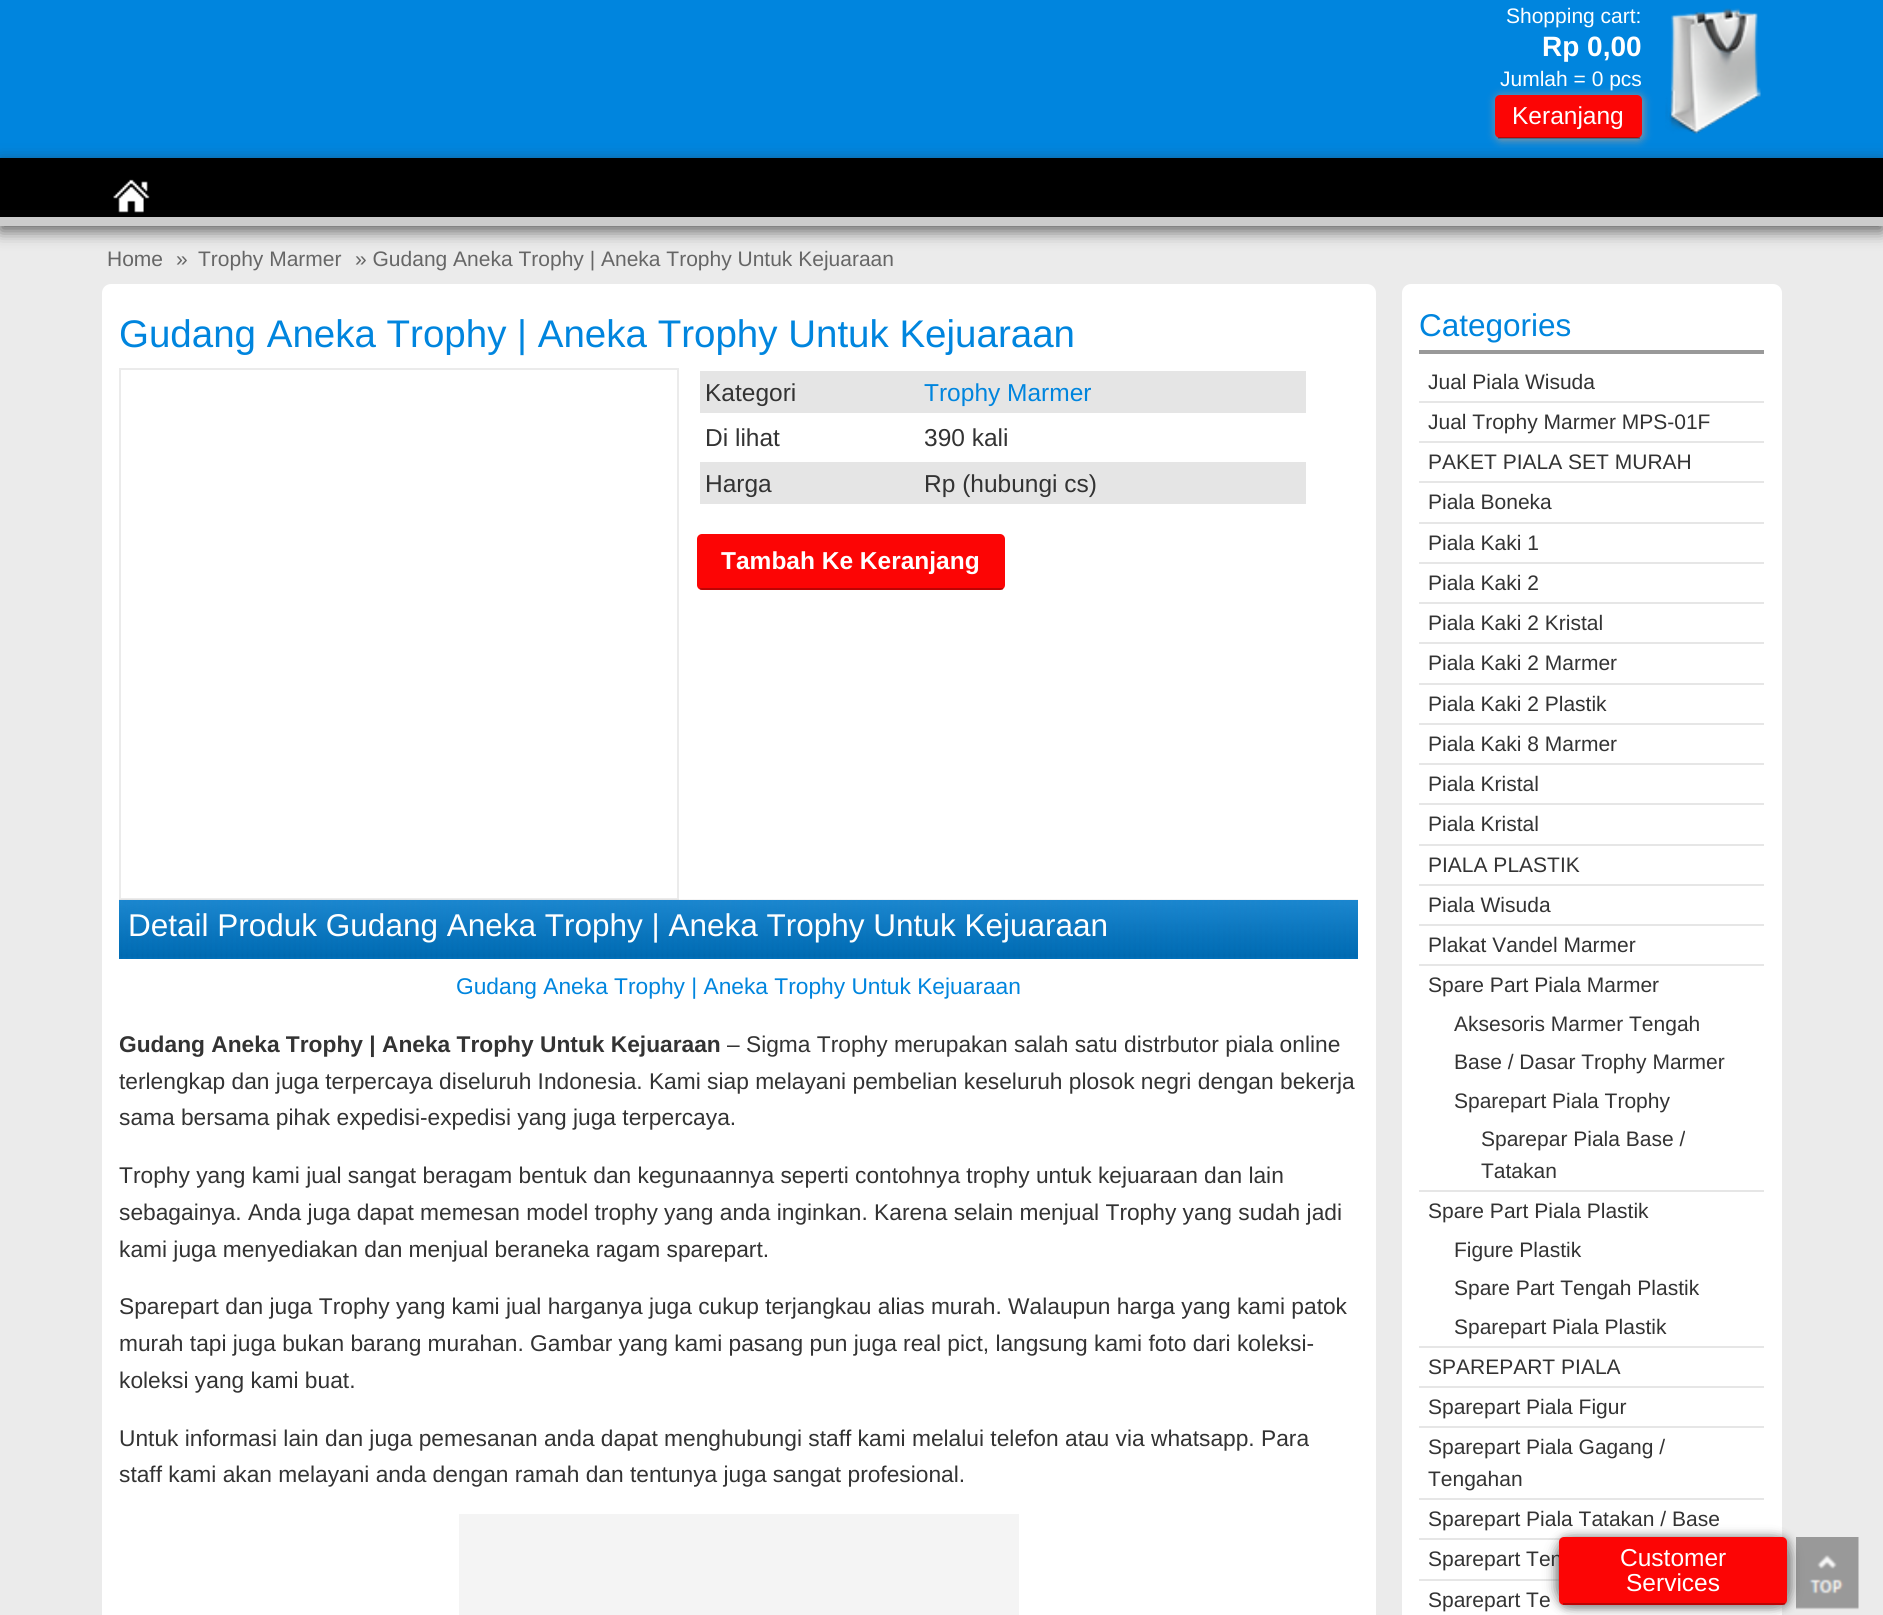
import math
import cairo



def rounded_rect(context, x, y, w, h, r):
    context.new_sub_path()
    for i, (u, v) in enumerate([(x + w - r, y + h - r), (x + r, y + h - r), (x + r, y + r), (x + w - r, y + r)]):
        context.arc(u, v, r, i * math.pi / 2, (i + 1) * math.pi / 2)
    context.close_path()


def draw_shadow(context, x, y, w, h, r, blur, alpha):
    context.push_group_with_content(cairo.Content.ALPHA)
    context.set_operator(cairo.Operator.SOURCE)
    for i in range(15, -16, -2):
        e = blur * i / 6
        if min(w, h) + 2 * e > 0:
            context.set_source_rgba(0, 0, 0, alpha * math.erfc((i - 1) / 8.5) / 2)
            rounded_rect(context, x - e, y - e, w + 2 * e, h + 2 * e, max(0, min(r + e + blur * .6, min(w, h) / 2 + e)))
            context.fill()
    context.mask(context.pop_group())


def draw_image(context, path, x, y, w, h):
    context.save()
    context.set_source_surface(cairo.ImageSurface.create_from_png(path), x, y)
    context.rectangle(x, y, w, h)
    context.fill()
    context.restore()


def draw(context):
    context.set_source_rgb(235 / 255, 235 / 255, 235 / 255)
    context.paint()
    context.set_source_rgb(0, 133 / 255, 222 / 255)
    context.rectangle(0, 0, 1883, 158)
    context.fill()
    draw_image(context, "images/1.png", 1665, 8, 96, 126)
    context.set_source_rgb(153 / 255, 153 / 255, 153 / 255)
    draw_shadow(context, 1496, 96, 147, 44, 5, 4.5, 1)
    context.set_source_rgb(252 / 255, 5 / 255, 5 / 255)
    rounded_rect(context, 1495, 95, 147, 43, 5)
    context.fill()
    context.set_source_rgb(50 / 255, 50 / 255, 50 / 255)
    draw_shadow(context, 0, 163, 1883, 68, 0, 8, 0.75)
    context.set_source_rgba(0, 0, 0, 0.25)
    context.rectangle(1498, 137, 142, 2)
    context.fill()
    context.set_source_rgb(0, 0, 0)
    context.rectangle(0, 158, 1883, 59)
    context.fill()
    context.set_source_rgb(204 / 255, 204 / 255, 204 / 255)
    context.rectangle(0, 217, 1883, 9)
    context.fill()
    draw_image(context, "images/2.png", 113, 179, 37, 34)
    context.set_source_rgb(1, 1, 1)
    rounded_rect(context, 102, 284, 1274, 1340, 9)
    context.fill()
    context.rectangle(120, 369, 558, 530)
    context.set_source_rgb(235 / 255, 235 / 255, 235 / 255)
    context.stroke()
    context.set_source_rgb(229 / 255, 229 / 255, 229 / 255)
    context.rectangle(700, 371, 606, 42)
    context.fill()
    context.rectangle(700, 462, 606, 42)
    context.fill()
    context.set_source_rgb(252 / 255, 5 / 255, 5 / 255)
    rounded_rect(context, 697, 534, 308, 56, 5)
    context.fill()
    context.set_source_rgba(0, 0, 0, 0.25)
    context.rectangle(700, 588, 303, 2)
    context.fill()
    context.set_source_rgb(0, 133 / 255, 222 / 255)
    context.rectangle(119, 900, 1239, 59)
    context.fill()
    draw_image(context, "images/3.png", 119, 899, 1239, 60)
    context.set_source_rgb(244 / 255, 244 / 255, 244 / 255)
    context.rectangle(459, 1514, 560, 101)
    context.fill()
    context.set_source_rgb(1, 1, 1)
    rounded_rect(context, 1402, 284, 380, 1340, 9)
    context.fill()
    context.set_source_rgb(153 / 255, 153 / 255, 153 / 255)
    context.rectangle(1419, 350, 345, 4)
    context.fill()
    context.set_source_rgb(230 / 255, 230 / 255, 230 / 255)
    context.rectangle(1419, 401, 345, 2)
    context.fill()
    context.rectangle(1419, 441, 345, 2)
    context.fill()
    context.rectangle(1419, 481, 345, 2)
    context.fill()
    context.rectangle(1419, 522, 345, 2)
    context.fill()
    context.rectangle(1419, 562, 345, 2)
    context.fill()
    context.rectangle(1419, 602, 345, 2)
    context.fill()
    context.rectangle(1419, 642, 345, 2)
    context.fill()
    context.rectangle(1419, 683, 345, 2)
    context.fill()
    context.rectangle(1419, 723, 345, 2)
    context.fill()
    context.rectangle(1419, 763, 345, 2)
    context.fill()
    context.rectangle(1419, 803, 345, 2)
    context.fill()
    context.rectangle(1419, 844, 345, 2)
    context.fill()
    context.rectangle(1419, 884, 345, 2)
    context.fill()
    context.rectangle(1419, 924, 345, 2)
    context.fill()
    context.rectangle(1419, 964, 345, 2)
    context.fill()
    context.rectangle(1419, 1190, 345, 2)
    context.fill()
    context.rectangle(1419, 1346, 345, 2)
    context.fill()
    context.rectangle(1419, 1386, 345, 2)
    context.fill()
    context.rectangle(1419, 1426, 345, 2)
    context.fill()
    context.rectangle(1419, 1498, 345, 2)
    context.fill()
    context.rectangle(1419, 1538, 142, 2)
    context.fill()
    context.rectangle(1419, 1579, 140, 2)
    context.fill()
    draw_image(context, "images/4.png", 1796, 1537, 63, 73)
    context.set_source_rgb(50 / 255, 50 / 255, 50 / 255)
    draw_shadow(context, 1559, 1542, 228, 61, 14, 7, 1)
    context.set_source_rgb(153 / 255, 153 / 255, 153 / 255)
    draw_shadow(context, 1561, 1538, 228, 69, 5, 4.5, 1)
    context.select_font_face("Liberation Sans")
    context.set_font_size(21)
    context.set_source_rgb(1, 1, 1)
    context.move_to(1506, 23)
    context.show_text("Shopping cart:")
    context.select_font_face("Liberation Sans", cairo.FontSlant.NORMAL, cairo.FontWeight.BOLD)
    context.set_font_size(28)
    context.move_to(1542, 56)
    context.show_text("Rp 0,00")
    context.select_font_face("Liberation Sans")
    context.set_font_size(21)
    context.move_to(1500, 86)
    context.show_text("Jumlah = 0 pcs")
    context.set_font_size(24.5)
    context.move_to(1512, 124)
    context.show_text("Keranjang")
    context.set_font_size(21)
    context.set_source_rgb(102 / 255, 102 / 255, 102 / 255)
    context.move_to(107, 266)
    context.show_text("Home")
    context.move_to(176, 266)
    context.show_text("»")
    context.move_to(198, 266)
    context.show_text("Trophy Marmer")
    context.move_to(355, 266)
    context.show_text("» Gudang Aneka Trophy | Aneka Trophy Untuk Kejuaraan")
    context.set_font_size(38.5)
    context.set_source_rgb(0, 133 / 255, 222 / 255)
    context.move_to(119, 347)
    context.show_text("Gudang Aneka Trophy | Aneka Trophy Untuk Kejuaraan")
    context.set_font_size(24.5)
    context.set_source_rgb(51 / 255, 51 / 255, 51 / 255)
    context.move_to(705, 401)
    context.show_text("Kategori")
    context.set_source_rgb(0, 133 / 255, 222 / 255)
    context.move_to(924, 401)
    context.show_text("Trophy Marmer")
    context.set_source_rgb(51 / 255, 51 / 255, 51 / 255)
    context.move_to(705, 446)
    context.show_text("Di lihat")
    context.move_to(924, 446)
    context.show_text("390 kali")
    context.move_to(705, 492)
    context.show_text("Harga")
    context.move_to(924, 492)
    context.show_text("Rp (hubungi cs)")
    context.select_font_face("Liberation Sans", cairo.FontSlant.NORMAL, cairo.FontWeight.BOLD)
    context.set_source_rgb(1, 1, 1)
    context.move_to(721, 569)
    context.show_text("Tambah Ke Keranjang")
    context.select_font_face("Liberation Sans")
    context.set_font_size(31.5)
    context.move_to(128, 936)
    context.show_text("Detail Produk Gudang Aneka Trophy | Aneka Trophy Untuk Kejuaraan")
    context.set_font_size(22.75)
    context.set_source_rgb(0, 133 / 255, 222 / 255)
    context.move_to(456, 994)
    context.show_text("Gudang Aneka Trophy | Aneka Trophy Untuk Kejuaraan")
    context.select_font_face("Liberation Sans", cairo.FontSlant.NORMAL, cairo.FontWeight.BOLD)
    context.set_source_rgb(51 / 255, 51 / 255, 51 / 255)
    context.move_to(119, 1052)
    context.show_text("Gudang Aneka Trophy | Aneka Trophy Untuk Kejuaraan")
    context.select_font_face("Liberation Sans")
    context.move_to(727, 1052)
    context.show_text("– Sigma Trophy merupakan salah satu distrbutor piala online")
    context.move_to(119, 1089)
    context.show_text("terlengkap dan juga terpercaya diseluruh Indonesia. Kami siap melayani pembelian keseluruh plosok negri dengan bekerja")
    context.move_to(119, 1125)
    context.show_text("sama bersama pihak expedisi-expedisi yang juga terpercaya.")
    context.move_to(119, 1183)
    context.show_text("Trophy yang kami jual sangat beragam bentuk dan kegunaannya seperti contohnya trophy untuk kejuaraan dan lain")
    context.move_to(119, 1220)
    context.show_text("sebagainya. Anda juga dapat memesan model trophy yang anda inginkan. Karena selain menjual Trophy yang sudah jadi")
    context.move_to(119, 1257)
    context.show_text("kami juga menyediakan dan menjual beraneka ragam sparepart.")
    context.move_to(119, 1314)
    context.show_text("Sparepart dan juga Trophy yang kami jual harganya juga cukup terjangkau alias murah. Walaupun harga yang kami patok")
    context.move_to(119, 1351)
    context.show_text("murah tapi juga bukan barang murahan. Gambar yang kami pasang pun juga real pict, langsung kami foto dari koleksi-")
    context.move_to(119, 1388)
    context.show_text("koleksi yang kami buat.")
    context.move_to(119, 1446)
    context.show_text("Untuk informasi lain dan juga pemesanan anda dapat menghubungi staff kami melalui telefon atau via whatsapp. Para")
    context.move_to(119, 1482)
    context.show_text("staff kami akan melayani anda dengan ramah dan tentunya juga sangat profesional.")
    context.set_font_size(31.5)
    context.set_source_rgb(0, 133 / 255, 222 / 255)
    context.move_to(1419, 336)
    context.show_text("Categories")
    context.set_font_size(21)
    context.set_source_rgb(51 / 255, 51 / 255, 51 / 255)
    context.move_to(1428, 389)
    context.show_text("Jual Piala Wisuda")
    context.move_to(1428, 429)
    context.show_text("Jual Trophy Marmer MPS-01F")
    context.move_to(1428, 469)
    context.show_text("PAKET PIALA SET MURAH")
    context.move_to(1428, 509)
    context.show_text("Piala Boneka")
    context.move_to(1428, 550)
    context.show_text("Piala Kaki 1")
    context.move_to(1428, 590)
    context.show_text("Piala Kaki 2")
    context.move_to(1428, 630)
    context.show_text("Piala Kaki 2 Kristal")
    context.move_to(1428, 670)
    context.show_text("Piala Kaki 2 Marmer")
    context.move_to(1428, 711)
    context.show_text("Piala Kaki 2 Plastik")
    context.move_to(1428, 751)
    context.show_text("Piala Kaki 8 Marmer")
    context.move_to(1428, 791)
    context.show_text("Piala Kristal")
    context.move_to(1428, 831)
    context.show_text("Piala Kristal")
    context.move_to(1428, 872)
    context.show_text("PIALA PLASTIK")
    context.move_to(1428, 912)
    context.show_text("Piala Wisuda")
    context.move_to(1428, 952)
    context.show_text("Plakat Vandel Marmer")
    context.move_to(1428, 992)
    context.show_text("Spare Part Piala Marmer")
    context.move_to(1454, 1031)
    context.show_text("Aksesoris Marmer Tengah")
    context.move_to(1454, 1069)
    context.show_text("Base / Dasar Trophy Marmer")
    context.move_to(1454, 1108)
    context.show_text("Sparepart Piala Trophy")
    context.move_to(1481, 1146)
    context.show_text("Sparepar Piala Base /")
    context.move_to(1481, 1178)
    context.show_text("Tatakan")
    context.move_to(1428, 1218)
    context.show_text("Spare Part Piala Plastik")
    context.move_to(1454, 1257)
    context.show_text("Figure Plastik")
    context.move_to(1454, 1295)
    context.show_text("Spare Part Tengah Plastik")
    context.move_to(1454, 1334)
    context.show_text("Sparepart Piala Plastik")
    context.move_to(1428, 1374)
    context.show_text("SPAREPART PIALA")
    context.move_to(1428, 1414)
    context.show_text("Sparepart Piala Figur")
    context.move_to(1428, 1454)
    context.show_text("Sparepart Piala Gagang /")
    context.move_to(1428, 1486)
    context.show_text("Tengahan")
    context.move_to(1428, 1526)
    context.show_text("Sparepart Piala Tatakan / Base")
    context.move_to(1428, 1566)
    context.show_text("Sparepart Ten")
    context.move_to(1428, 1607)
    context.show_text("Sparepart Te")
    context.set_source_rgb(252 / 255, 5 / 255, 5 / 255)
    rounded_rect(context, 1559, 1537, 228, 68, 5)
    context.fill()
    context.set_source_rgba(0, 0, 0, 0.25)
    context.rectangle(1563, 1603, 222, 2)
    context.fill()
    context.set_font_size(24.5)
    context.set_source_rgb(1, 1, 1)
    context.move_to(1620, 1566)
    context.show_text("Customer")
    context.move_to(1626, 1591)
    context.show_text("Services")


surface = cairo.ImageSurface(cairo.Format.RGB24, 1883, 1615)
context = cairo.Context(surface)
options = cairo.FontOptions()
options.set_hint_metrics(cairo.HintMetrics.OFF)
options.set_hint_style(cairo.HintStyle.NONE)
context.set_font_options(options)
context.set_miter_limit(4)
draw(context)
surface.write_to_png("out.png")
